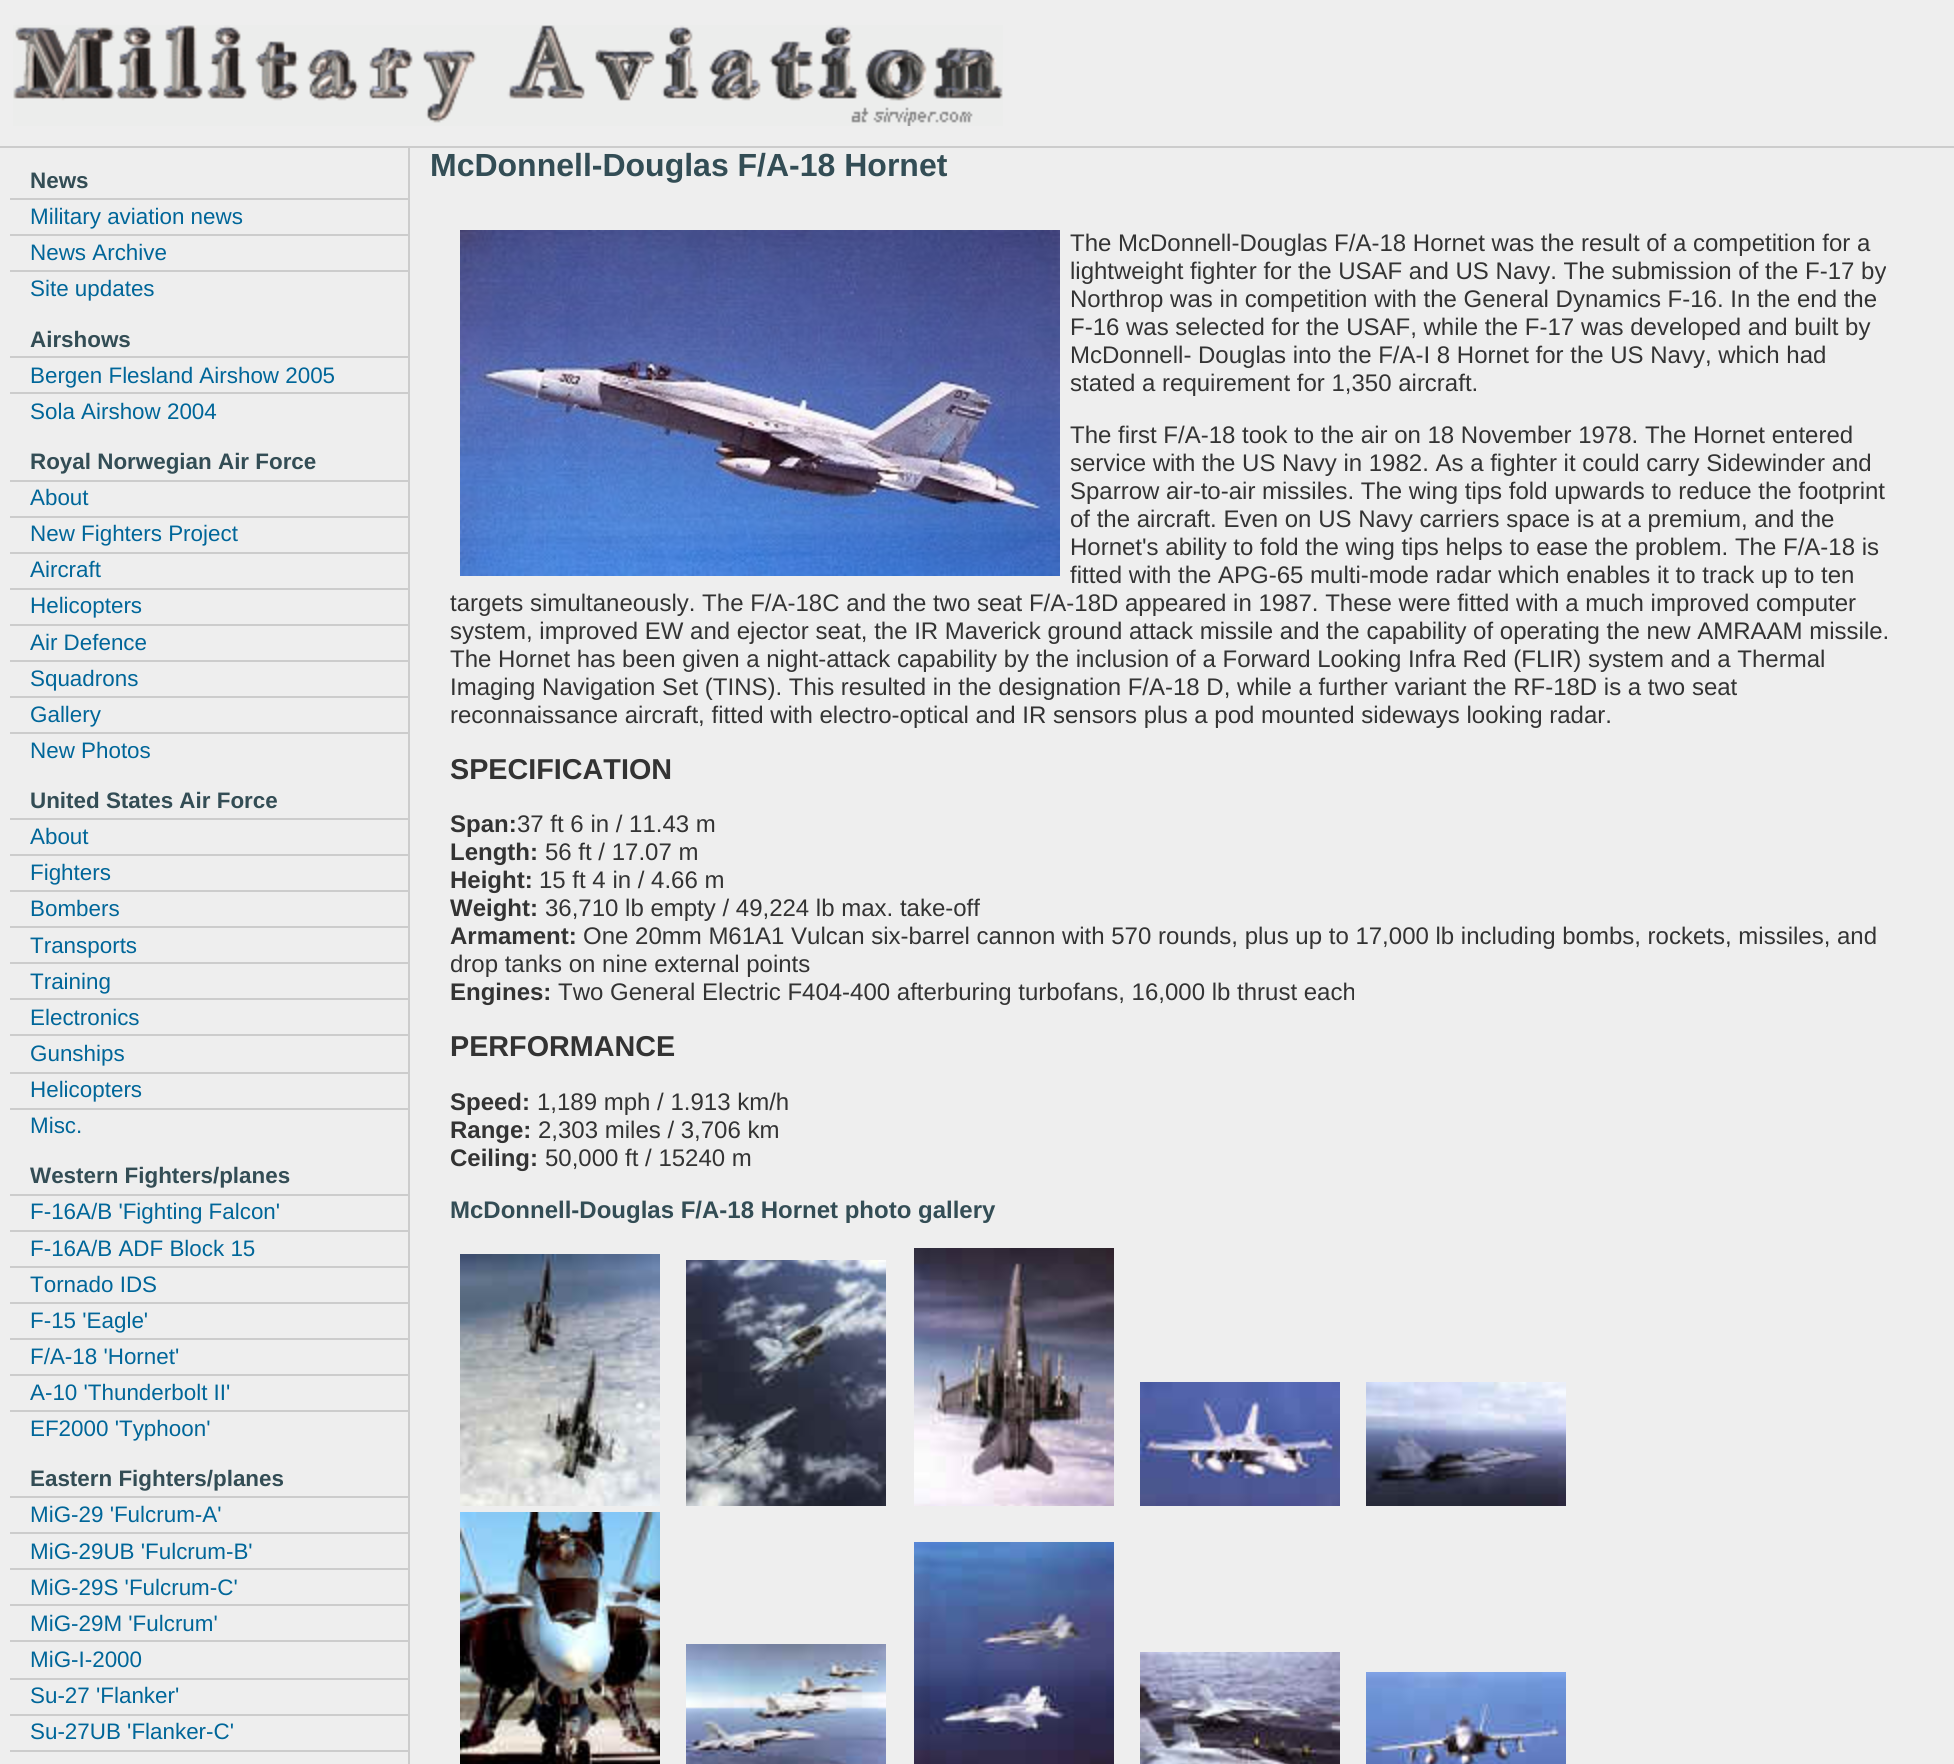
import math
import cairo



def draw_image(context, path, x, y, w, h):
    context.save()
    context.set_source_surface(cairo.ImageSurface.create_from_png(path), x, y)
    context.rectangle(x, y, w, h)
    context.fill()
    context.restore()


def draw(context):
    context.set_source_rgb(238 / 255, 238 / 255, 238 / 255)
    context.paint()
    context.set_source_rgb(204 / 255, 204 / 255, 204 / 255)
    context.rectangle(0, 146, 1954, 2)
    context.fill()
    draw_image(context, "images/1.png", 13, 25, 990, 101)
    context.rectangle(408, 148, 2, 1616)
    context.fill()
    context.rectangle(10, 198, 398, 2)
    context.fill()
    context.rectangle(10, 234, 398, 2)
    context.fill()
    context.rectangle(10, 270, 398, 2)
    context.fill()
    context.rectangle(10, 356, 398, 2)
    context.fill()
    context.rectangle(10, 392, 398, 2)
    context.fill()
    context.rectangle(10, 480, 398, 2)
    context.fill()
    context.rectangle(10, 516, 398, 2)
    context.fill()
    context.rectangle(10, 552, 398, 2)
    context.fill()
    context.rectangle(10, 588, 398, 2)
    context.fill()
    context.rectangle(10, 624, 398, 2)
    context.fill()
    context.rectangle(10, 660, 398, 2)
    context.fill()
    context.rectangle(10, 696, 398, 2)
    context.fill()
    context.rectangle(10, 732, 398, 2)
    context.fill()
    context.rectangle(10, 818, 398, 2)
    context.fill()
    context.rectangle(10, 854, 398, 2)
    context.fill()
    context.rectangle(10, 890, 398, 2)
    context.fill()
    context.rectangle(10, 926, 398, 2)
    context.fill()
    context.rectangle(10, 962, 398, 2)
    context.fill()
    context.rectangle(10, 998, 398, 2)
    context.fill()
    context.rectangle(10, 1034, 398, 2)
    context.fill()
    context.rectangle(10, 1072, 398, 2)
    context.fill()
    context.rectangle(10, 1108, 398, 2)
    context.fill()
    context.rectangle(10, 1194, 398, 2)
    context.fill()
    context.rectangle(10, 1230, 398, 2)
    context.fill()
    context.rectangle(10, 1266, 398, 2)
    context.fill()
    context.rectangle(10, 1302, 398, 2)
    context.fill()
    context.rectangle(10, 1338, 398, 2)
    context.fill()
    context.rectangle(10, 1374, 398, 2)
    context.fill()
    context.rectangle(10, 1410, 398, 2)
    context.fill()
    context.rectangle(10, 1496, 398, 2)
    context.fill()
    context.rectangle(10, 1532, 398, 2)
    context.fill()
    context.rectangle(10, 1568, 398, 2)
    context.fill()
    context.rectangle(10, 1604, 398, 2)
    context.fill()
    context.rectangle(10, 1640, 398, 2)
    context.fill()
    context.rectangle(10, 1678, 398, 2)
    context.fill()
    context.rectangle(10, 1714, 398, 2)
    context.fill()
    context.rectangle(10, 1750, 398, 2)
    context.fill()
    draw_image(context, "images/2.png", 460, 230, 600, 346)
    draw_image(context, "images/3.png", 460, 1254, 200, 252)
    draw_image(context, "images/4.png", 686, 1260, 200, 246)
    draw_image(context, "images/5.png", 914, 1248, 200, 258)
    draw_image(context, "images/6.png", 1140, 1382, 200, 124)
    draw_image(context, "images/7.png", 1366, 1382, 200, 124)
    draw_image(context, "images/8.png", 460, 1512, 200, 252)
    draw_image(context, "images/9.png", 686, 1644, 200, 120)
    draw_image(context, "images/10.png", 914, 1542, 200, 222)
    draw_image(context, "images/11.png", 1140, 1652, 200, 112)
    draw_image(context, "images/12.png", 1366, 1672, 200, 92)
    context.select_font_face("Liberation Sans", cairo.FontSlant.NORMAL, cairo.FontWeight.BOLD)
    context.set_font_size(22.4)
    context.set_source_rgb(51 / 255, 77 / 255, 85 / 255)
    context.move_to(30, 188)
    context.show_text("News")
    context.select_font_face("Liberation Sans")
    context.set_source_rgb(0, 102 / 255, 153 / 255)
    context.move_to(30, 224)
    context.show_text("Military aviation news")
    context.move_to(30, 260)
    context.show_text("News Archive")
    context.move_to(30, 296)
    context.show_text("Site updates")
    context.select_font_face("Liberation Sans", cairo.FontSlant.NORMAL, cairo.FontWeight.BOLD)
    context.set_source_rgb(51 / 255, 77 / 255, 85 / 255)
    context.move_to(30, 347)
    context.show_text("Airshows")
    context.select_font_face("Liberation Sans")
    context.set_source_rgb(0, 102 / 255, 153 / 255)
    context.move_to(30, 383)
    context.show_text("Bergen Flesland Airshow 2005")
    context.move_to(30, 419)
    context.show_text("Sola Airshow 2004")
    context.select_font_face("Liberation Sans", cairo.FontSlant.NORMAL, cairo.FontWeight.BOLD)
    context.set_source_rgb(51 / 255, 77 / 255, 85 / 255)
    context.move_to(30, 469)
    context.show_text("Royal Norwegian Air Force")
    context.select_font_face("Liberation Sans")
    context.set_source_rgb(0, 102 / 255, 153 / 255)
    context.move_to(30, 505)
    context.show_text("About")
    context.move_to(30, 541)
    context.show_text("New Fighters Project")
    context.move_to(30, 577)
    context.show_text("Aircraft")
    context.move_to(30, 613)
    context.show_text("Helicopters")
    context.move_to(30, 650)
    context.show_text("Air Defence")
    context.move_to(30, 686)
    context.show_text("Squadrons")
    context.move_to(30, 722)
    context.show_text("Gallery")
    context.move_to(30, 758)
    context.show_text("New Photos")
    context.select_font_face("Liberation Sans", cairo.FontSlant.NORMAL, cairo.FontWeight.BOLD)
    context.set_source_rgb(51 / 255, 77 / 255, 85 / 255)
    context.move_to(30, 808)
    context.show_text("United States Air Force")
    context.select_font_face("Liberation Sans")
    context.set_source_rgb(0, 102 / 255, 153 / 255)
    context.move_to(30, 844)
    context.show_text("About")
    context.move_to(30, 880)
    context.show_text("Fighters")
    context.move_to(30, 916)
    context.show_text("Bombers")
    context.move_to(30, 953)
    context.show_text("Transports")
    context.move_to(30, 989)
    context.show_text("Training")
    context.move_to(30, 1025)
    context.show_text("Electronics")
    context.move_to(30, 1061)
    context.show_text("Gunships")
    context.move_to(30, 1097)
    context.show_text("Helicopters")
    context.move_to(30, 1133)
    context.show_text("Misc.")
    context.select_font_face("Liberation Sans", cairo.FontSlant.NORMAL, cairo.FontWeight.BOLD)
    context.set_source_rgb(51 / 255, 77 / 255, 85 / 255)
    context.move_to(30, 1183)
    context.show_text("Western Fighters/planes")
    context.select_font_face("Liberation Sans")
    context.set_source_rgb(0, 102 / 255, 153 / 255)
    context.move_to(30, 1219)
    context.show_text("F-16A/B 'Fighting Falcon'")
    context.move_to(30, 1256)
    context.show_text("F-16A/B ADF Block 15")
    context.move_to(30, 1292)
    context.show_text("Tornado IDS")
    context.move_to(30, 1328)
    context.show_text("F-15 'Eagle'")
    context.move_to(30, 1364)
    context.show_text("F/A-18 'Hornet'")
    context.move_to(30, 1400)
    context.show_text("A-10 'Thunderbolt II'")
    context.move_to(30, 1436)
    context.show_text("EF2000 'Typhoon'")
    context.select_font_face("Liberation Sans", cairo.FontSlant.NORMAL, cairo.FontWeight.BOLD)
    context.set_source_rgb(51 / 255, 77 / 255, 85 / 255)
    context.move_to(30, 1486)
    context.show_text("Eastern Fighters/planes")
    context.select_font_face("Liberation Sans")
    context.set_source_rgb(0, 102 / 255, 153 / 255)
    context.move_to(30, 1522)
    context.show_text("MiG-29 'Fulcrum-A'")
    context.move_to(30, 1559)
    context.show_text("MiG-29UB 'Fulcrum-B'")
    context.move_to(30, 1595)
    context.show_text("MiG-29S 'Fulcrum-C'")
    context.move_to(30, 1631)
    context.show_text("MiG-29M 'Fulcrum'")
    context.move_to(30, 1667)
    context.show_text("MiG-I-2000")
    context.move_to(30, 1703)
    context.show_text("Su-27 'Flanker'")
    context.move_to(30, 1739)
    context.show_text("Su-27UB 'Flanker-C'")
    context.select_font_face("Liberation Sans", cairo.FontSlant.NORMAL, cairo.FontWeight.BOLD)
    context.set_font_size(32)
    context.set_source_rgb(51 / 255, 77 / 255, 85 / 255)
    context.move_to(430, 176)
    context.show_text("McDonnell-Douglas F/A-18 Hornet")
    context.select_font_face("Liberation Sans")
    context.set_font_size(24)
    context.set_source_rgb(51 / 255, 51 / 255, 51 / 255)
    context.move_to(1070, 251)
    context.show_text("The McDonnell-Douglas F/A-18 Hornet was the result of a competition for a")
    context.move_to(1070, 279)
    context.show_text("lightweight fighter for the USAF and US Navy. The submission of the F-17 by")
    context.move_to(1070, 307)
    context.show_text("Northrop was in competition with the General Dynamics F-16. In the end the")
    context.move_to(1070, 335)
    context.show_text("F-16 was selected for the USAF, while the F-17 was developed and built by")
    context.move_to(1070, 363)
    context.show_text("McDonnell- Douglas into the F/A-I 8 Hornet for the US Navy, which had")
    context.move_to(1070, 391)
    context.show_text("stated a requirement for 1,350 aircraft.")
    context.move_to(1070, 443)
    context.show_text("The first F/A-18 took to the air on 18 November 1978. The Hornet entered")
    context.move_to(1070, 471)
    context.show_text("service with the US Navy in 1982. As a fighter it could carry Sidewinder and")
    context.move_to(1070, 499)
    context.show_text("Sparrow air-to-air missiles. The wing tips fold upwards to reduce the footprint")
    context.move_to(1070, 527)
    context.show_text("of the aircraft. Even on US Navy carriers space is at a premium, and the")
    context.move_to(1070, 555)
    context.show_text("Hornet's ability to fold the wing tips helps to ease the problem. The F/A-18 is")
    context.move_to(1070, 583)
    context.show_text("fitted with the APG-65 multi-mode radar which enables it to track up to ten")
    context.move_to(450, 611)
    context.show_text("targets simultaneously. The F/A-18C and the two seat F/A-18D appeared in 1987. These were fitted with a much improved computer")
    context.move_to(450, 639)
    context.show_text("system, improved EW and ejector seat, the IR Maverick ground attack missile and the capability of operating the new AMRAAM missile.")
    context.move_to(450, 667)
    context.show_text("The Hornet has been given a night-attack capability by the inclusion of a Forward Looking Infra Red (FLIR) system and a Thermal")
    context.move_to(450, 695)
    context.show_text("Imaging Navigation Set (TINS). This resulted in the designation F/A-18 D, while a further variant the RF-18D is a two seat")
    context.move_to(450, 723)
    context.show_text("reconnaissance aircraft, fitted with electro-optical and IR sensors plus a pod mounted sideways looking radar.")
    context.select_font_face("Liberation Sans", cairo.FontSlant.NORMAL, cairo.FontWeight.BOLD)
    context.set_font_size(28.75)
    context.move_to(450, 779)
    context.show_text("SPECIFICATION")
    context.set_font_size(24)
    context.move_to(450, 832)
    context.show_text("Span:")
    context.select_font_face("Liberation Sans")
    context.move_to(517, 832)
    context.show_text("37 ft 6 in / 11.43 m")
    context.select_font_face("Liberation Sans", cairo.FontSlant.NORMAL, cairo.FontWeight.BOLD)
    context.move_to(450, 860)
    context.show_text("Length:")
    context.select_font_face("Liberation Sans")
    context.move_to(545, 860)
    context.show_text("56 ft / 17.07 m")
    context.select_font_face("Liberation Sans", cairo.FontSlant.NORMAL, cairo.FontWeight.BOLD)
    context.move_to(450, 888)
    context.show_text("Height:")
    context.select_font_face("Liberation Sans")
    context.move_to(539, 888)
    context.show_text("15 ft 4 in / 4.66 m")
    context.select_font_face("Liberation Sans", cairo.FontSlant.NORMAL, cairo.FontWeight.BOLD)
    context.move_to(450, 916)
    context.show_text("Weight:")
    context.select_font_face("Liberation Sans")
    context.move_to(545, 916)
    context.show_text("36,710 lb empty / 49,224 lb max. take-off")
    context.select_font_face("Liberation Sans", cairo.FontSlant.NORMAL, cairo.FontWeight.BOLD)
    context.move_to(450, 944)
    context.show_text("Armament:")
    context.select_font_face("Liberation Sans")
    context.move_to(583, 944)
    context.show_text("One 20mm M61A1 Vulcan six-barrel cannon with 570 rounds, plus up to 17,000 lb including bombs, rockets, missiles, and")
    context.move_to(450, 972)
    context.show_text("drop tanks on nine external points")
    context.select_font_face("Liberation Sans", cairo.FontSlant.NORMAL, cairo.FontWeight.BOLD)
    context.move_to(450, 1000)
    context.show_text("Engines:")
    context.select_font_face("Liberation Sans")
    context.move_to(558, 1000)
    context.show_text("Two General Electric F404-400 afterburing turbofans, 16,000 lb thrust each")
    context.select_font_face("Liberation Sans", cairo.FontSlant.NORMAL, cairo.FontWeight.BOLD)
    context.set_font_size(28.75)
    context.move_to(450, 1056)
    context.show_text("PERFORMANCE")
    context.set_font_size(24)
    context.move_to(450, 1110)
    context.show_text("Speed:")
    context.select_font_face("Liberation Sans")
    context.move_to(537, 1110)
    context.show_text("1,189 mph / 1.913 km/h")
    context.select_font_face("Liberation Sans", cairo.FontSlant.NORMAL, cairo.FontWeight.BOLD)
    context.move_to(450, 1138)
    context.show_text("Range:")
    context.select_font_face("Liberation Sans")
    context.move_to(538, 1138)
    context.show_text("2,303 miles / 3,706 km")
    context.select_font_face("Liberation Sans", cairo.FontSlant.NORMAL, cairo.FontWeight.BOLD)
    context.move_to(450, 1166)
    context.show_text("Ceiling:")
    context.select_font_face("Liberation Sans")
    context.move_to(545, 1166)
    context.show_text("50,000 ft / 15240 m")
    context.select_font_face("Liberation Sans", cairo.FontSlant.NORMAL, cairo.FontWeight.BOLD)
    context.set_source_rgb(51 / 255, 77 / 255, 85 / 255)
    context.move_to(450, 1218)
    context.show_text("McDonnell-Douglas F/A-18 Hornet photo gallery")


surface = cairo.ImageSurface(cairo.Format.RGB24, 1954, 1764)
context = cairo.Context(surface)
options = cairo.FontOptions()
options.set_hint_metrics(cairo.HintMetrics.OFF)
options.set_hint_style(cairo.HintStyle.NONE)
context.set_font_options(options)
context.set_miter_limit(4)
draw(context)
surface.write_to_png("out.png")
